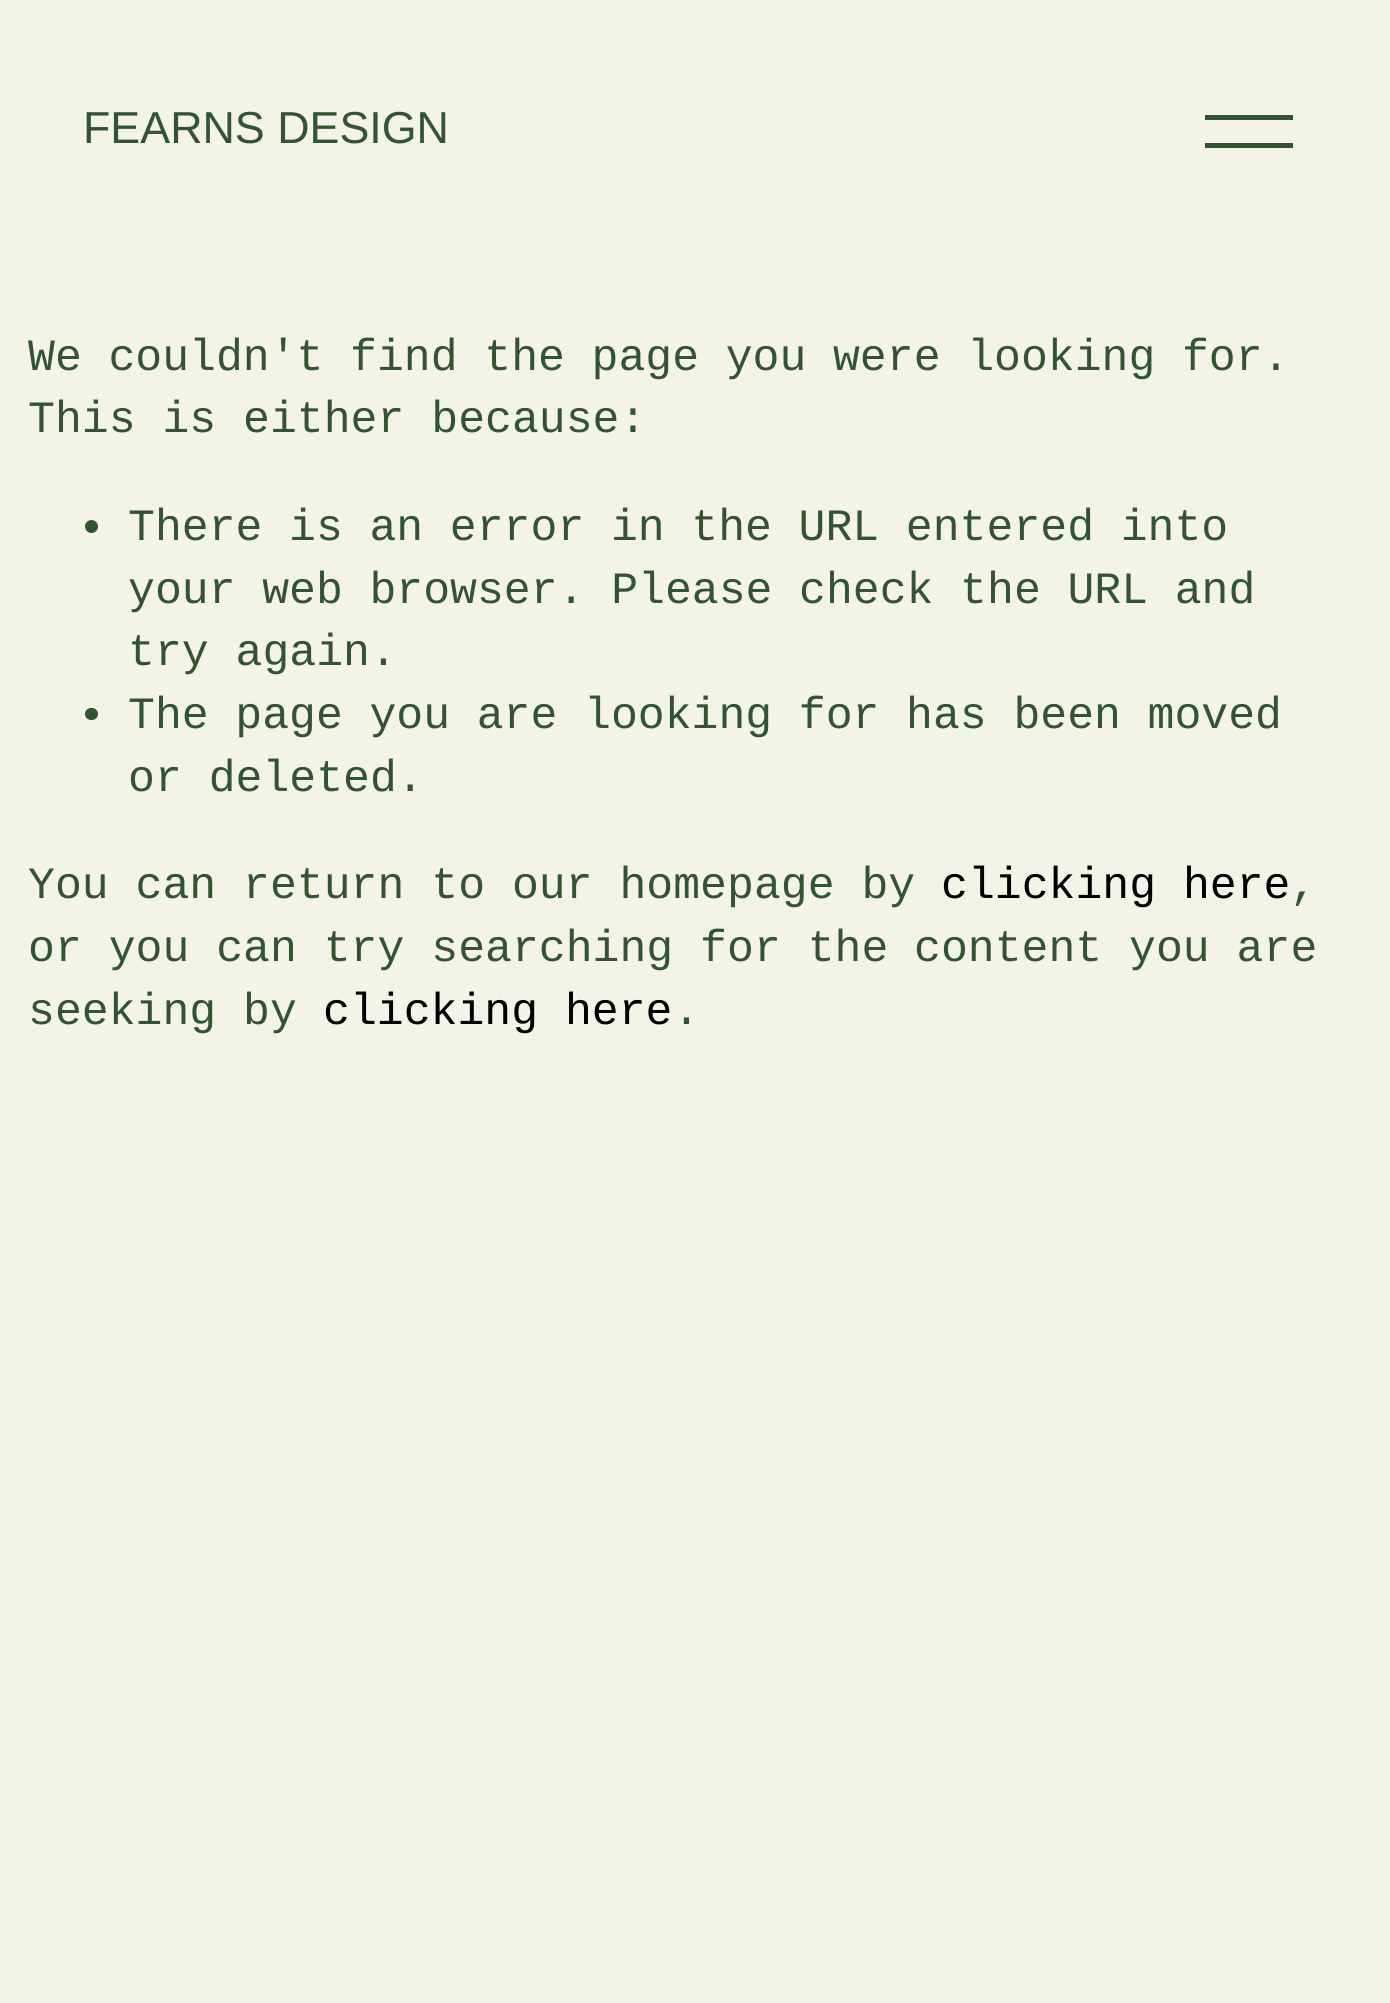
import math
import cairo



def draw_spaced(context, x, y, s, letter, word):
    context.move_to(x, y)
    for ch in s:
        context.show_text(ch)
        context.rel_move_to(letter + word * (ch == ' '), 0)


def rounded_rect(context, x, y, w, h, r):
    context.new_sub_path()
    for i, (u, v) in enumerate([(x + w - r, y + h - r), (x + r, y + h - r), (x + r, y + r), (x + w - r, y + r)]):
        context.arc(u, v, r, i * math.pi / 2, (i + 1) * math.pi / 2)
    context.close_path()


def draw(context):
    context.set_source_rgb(244 / 255, 243 / 255, 232 / 255)
    context.paint()
    context.set_source_rgb(51 / 255, 84 / 255, 51 / 255)
    context.rectangle(1205, 115, 88, 5)
    context.fill()
    context.rectangle(1205, 143, 88, 5)
    context.fill()
    context.arc(91.5, 526.5, 6.5, 0, 2 * math.pi)
    context.fill()
    rounded_rect(context, 85, 708, 13, 12, 6)
    context.fill()
    context.select_font_face("Liberation Sans")
    context.set_font_size(44.8)
    context.move_to(83, 143)
    context.show_text("FEARNS DESIGN")
    context.select_font_face("Liberation Mono")
    draw_spaced(context, 28, 370, "We couldn't find the page you were looking for.", 0, -0.25)
    context.move_to(28, 432)
    context.show_text("This is either because:")
    draw_spaced(context, 128, 540, "There is an error in the URL entered into", 0, -0.25)
    draw_spaced(context, 128, 603, "your web browser. Please check the URL and", 0, -0.25)
    context.move_to(128, 665)
    context.show_text("try again.")
    draw_spaced(context, 128, 728, "The page you are looking for has been moved", 0, -0.25)
    context.move_to(128, 791)
    context.show_text("or deleted.")
    context.move_to(28, 898)
    context.show_text("You can return to our homepage by")
    context.set_source_rgb(0, 0, 0)
    context.move_to(941, 898)
    context.show_text("clicking here")
    context.set_source_rgb(51 / 255, 84 / 255, 51 / 255)
    context.move_to(1290, 898)
    context.show_text(",")
    context.move_to(28, 961)
    context.show_text("or you can try searching for the")
    context.move_to(914, 961)
    context.show_text("content you are")
    context.move_to(28, 1024)
    context.show_text("seeking by")
    context.set_source_rgb(0, 0, 0)
    context.move_to(323, 1024)
    context.show_text("clicking here")
    context.set_source_rgb(51 / 255, 84 / 255, 51 / 255)
    context.move_to(673, 1024)
    context.show_text(".")


surface = cairo.ImageSurface(cairo.Format.RGB24, 1390, 2003)
context = cairo.Context(surface)
options = cairo.FontOptions()
options.set_hint_metrics(cairo.HintMetrics.OFF)
options.set_hint_style(cairo.HintStyle.NONE)
context.set_font_options(options)
context.set_miter_limit(4)
draw(context)
surface.write_to_png("out.png")
